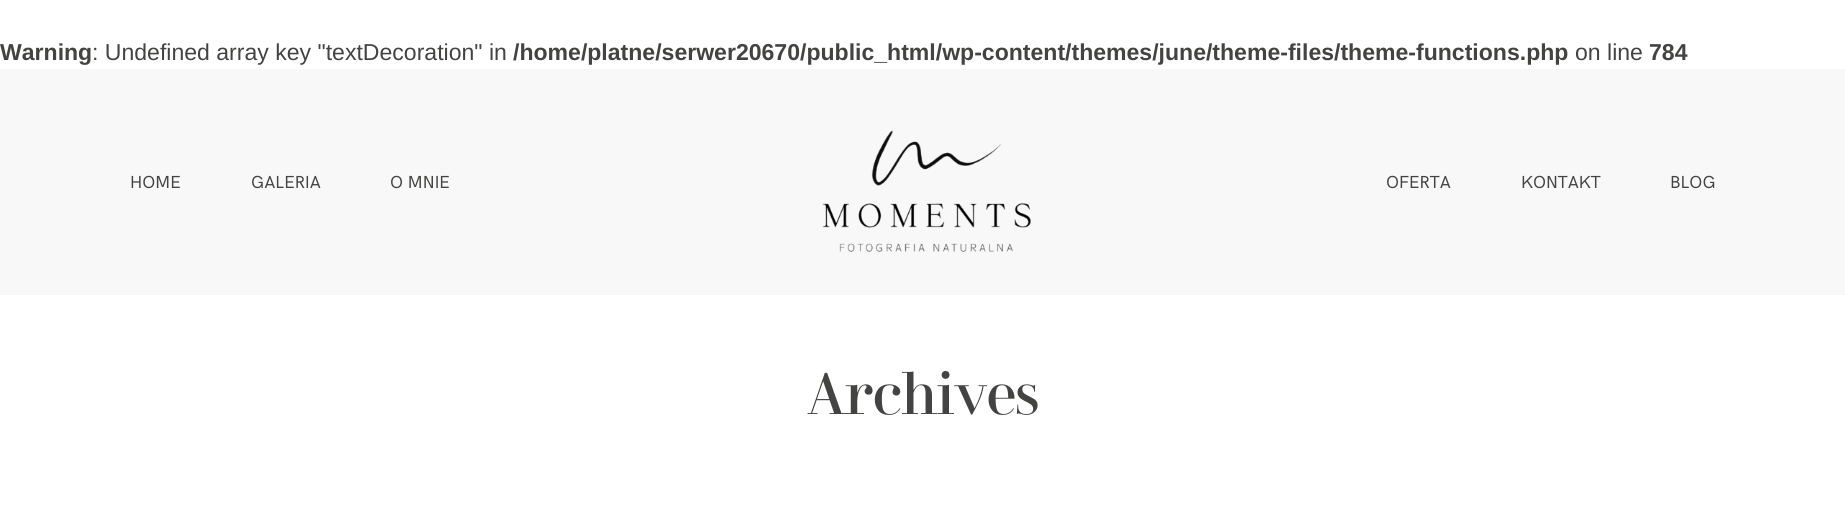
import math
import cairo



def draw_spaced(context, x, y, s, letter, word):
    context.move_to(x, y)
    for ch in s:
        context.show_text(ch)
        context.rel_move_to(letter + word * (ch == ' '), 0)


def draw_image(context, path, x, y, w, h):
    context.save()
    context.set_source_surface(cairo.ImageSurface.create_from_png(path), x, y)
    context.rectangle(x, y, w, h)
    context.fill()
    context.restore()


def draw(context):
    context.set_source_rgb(1, 1, 1)
    context.paint()
    context.set_source_rgb(248 / 255, 248 / 255, 248 / 255)
    context.rectangle(0, 69, 1845, 226)
    context.fill()
    draw_image(context, "images/1.png", 822, 130, 209, 122)
    context.select_font_face("Liberation Sans", cairo.FontSlant.NORMAL, cairo.FontWeight.BOLD)
    context.set_font_size(23.05)
    context.set_source_rgb(67 / 255, 68 / 255, 66 / 255)
    context.move_to(0, 60)
    context.show_text("Warning")
    context.select_font_face("Liberation Sans")
    context.move_to(92, 60)
    context.show_text(": Undefined array key \"textDecoration\" in")
    context.select_font_face("Liberation Sans", cairo.FontSlant.NORMAL, cairo.FontWeight.BOLD)
    context.move_to(513, 60)
    context.show_text("/home/platne/serwer20670/public_html/wp-content/themes/june/theme-files/theme-functions.php")
    context.select_font_face("Liberation Sans")
    context.move_to(1575, 60)
    context.show_text("on line")
    context.select_font_face("Liberation Sans", cairo.FontSlant.NORMAL, cairo.FontWeight.BOLD)
    context.move_to(1649, 60)
    context.show_text("784")
    context.select_font_face("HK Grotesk")
    context.set_font_size(17.5)
    context.move_to(130, 188)
    context.show_text("HOME")
    context.move_to(251, 188)
    context.show_text("GALERIA")
    context.move_to(390, 188)
    context.show_text("O MNIE")
    context.move_to(1386, 188)
    context.show_text("OFERTA")
    context.move_to(1521, 188)
    context.show_text("KONTAKT")
    context.move_to(1670, 188)
    context.show_text("BLOG")
    context.select_font_face("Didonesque")
    context.set_font_size(57.5)
    draw_spaced(context, 807, 414, "Archives", -1.75, 0)


surface = cairo.ImageSurface(cairo.Format.RGB24, 1845, 522)
context = cairo.Context(surface)
options = cairo.FontOptions()
options.set_hint_metrics(cairo.HintMetrics.OFF)
options.set_hint_style(cairo.HintStyle.NONE)
context.set_font_options(options)
context.set_miter_limit(4)
draw(context)
surface.write_to_png("out.png")
